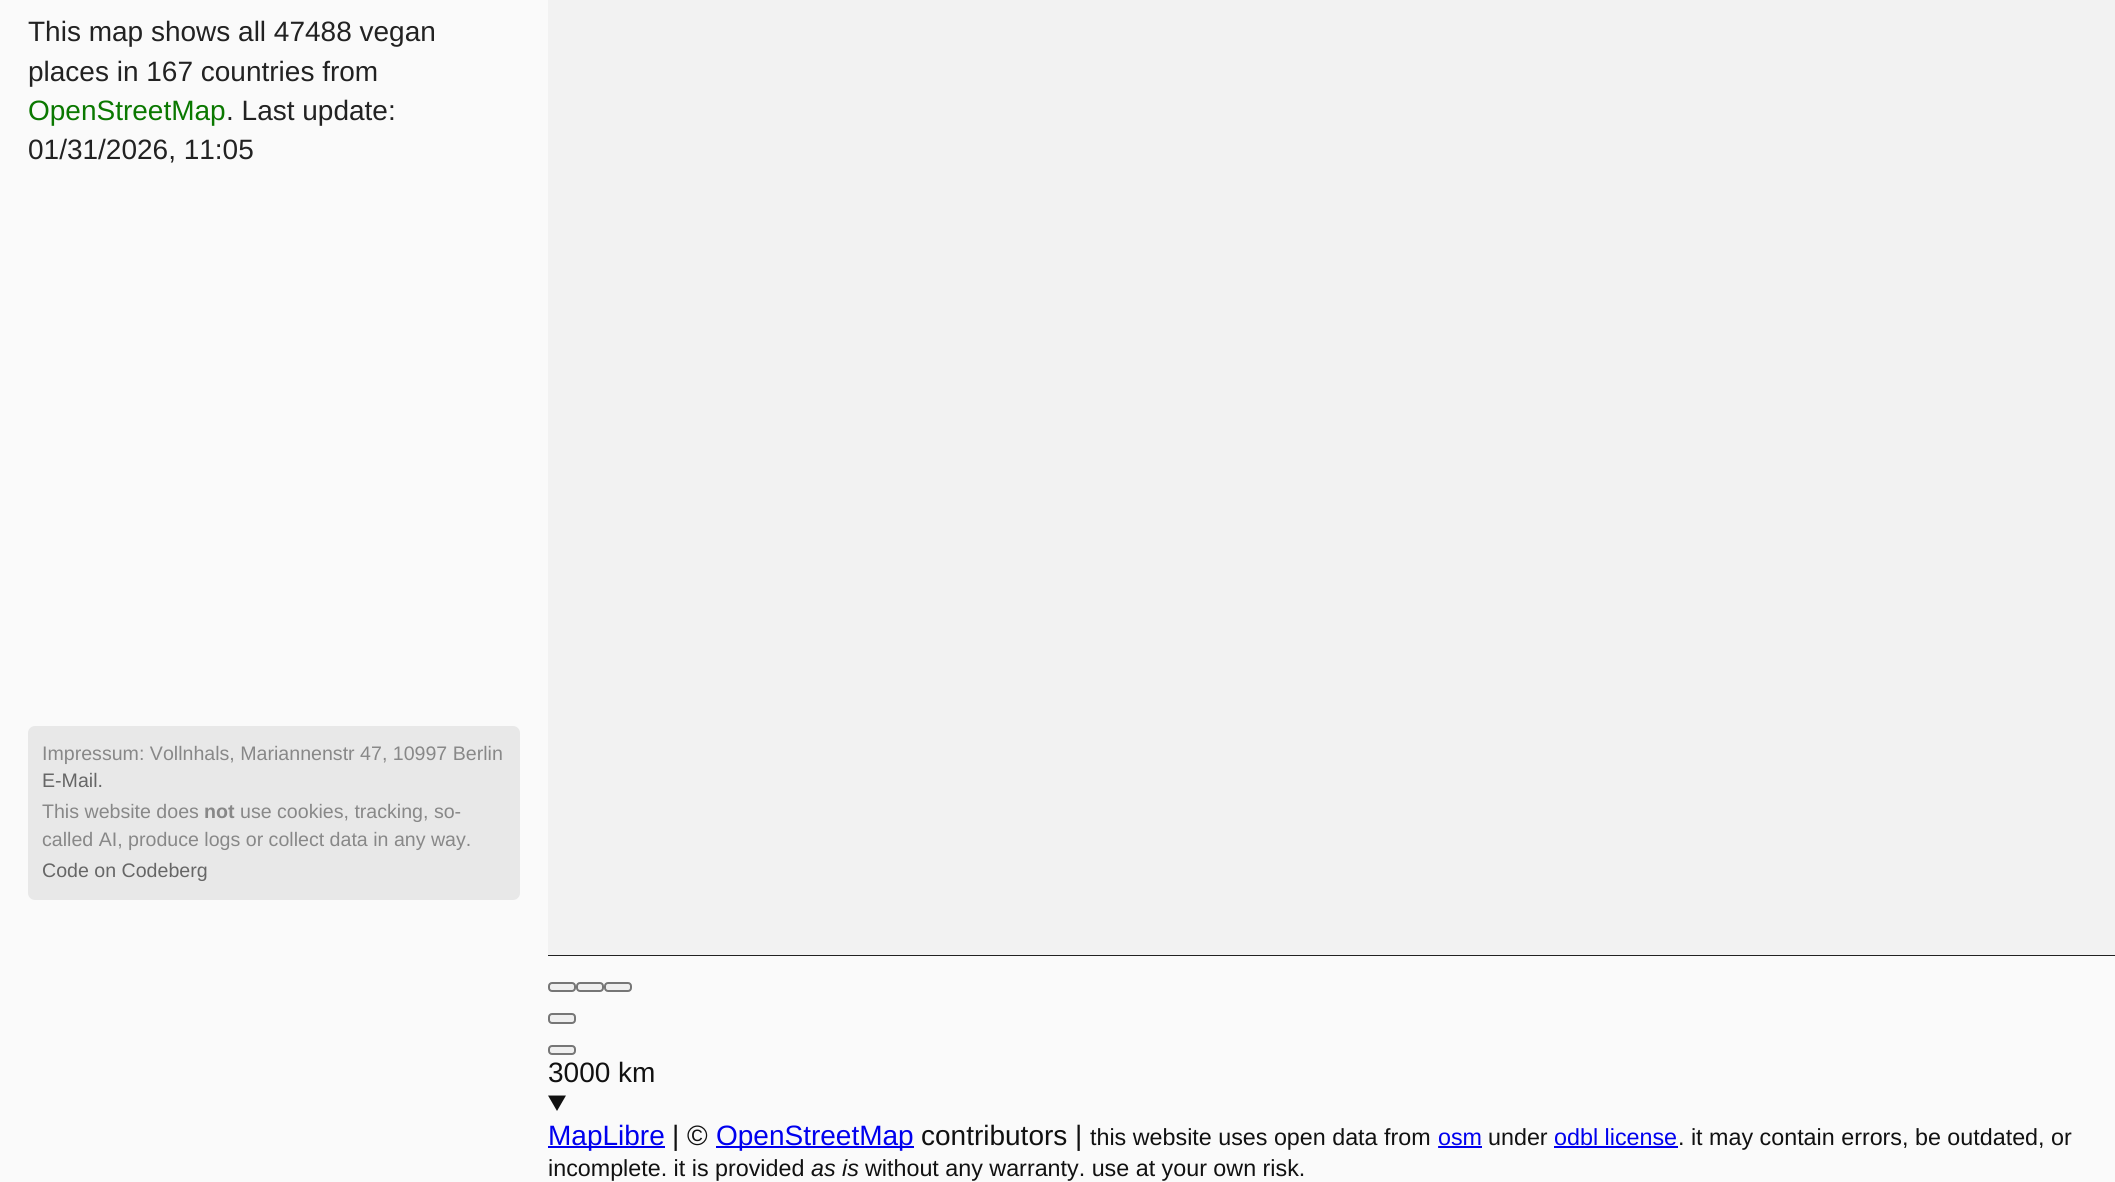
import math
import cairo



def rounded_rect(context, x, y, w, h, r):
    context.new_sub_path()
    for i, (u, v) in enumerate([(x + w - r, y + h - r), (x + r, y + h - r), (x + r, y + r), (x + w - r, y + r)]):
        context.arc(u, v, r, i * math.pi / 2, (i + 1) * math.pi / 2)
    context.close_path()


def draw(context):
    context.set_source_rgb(250 / 255, 250 / 255, 250 / 255)
    context.paint()
    context.set_source_rgb(34 / 255, 34 / 255, 34 / 255)
    context.rectangle(548, 955, 1567, 1)
    context.fill()
    context.set_source_rgb(232 / 255, 232 / 255, 232 / 255)
    rounded_rect(context, 28, 726, 492, 174, 7)
    context.fill()
    context.set_source_rgb(242 / 255, 242 / 255, 242 / 255)
    context.rectangle(548, 0, 1567, 955)
    context.fill()
    context.set_source_rgb(239 / 255, 239 / 255, 239 / 255)
    rounded_rect(context, 549, 983, 26, 8, 3)
    context.fill_preserve()
    context.set_source_rgb(118 / 255, 118 / 255, 118 / 255)
    context.stroke()
    context.set_source_rgb(239 / 255, 239 / 255, 239 / 255)
    rounded_rect(context, 577, 983, 26, 8, 3)
    context.fill_preserve()
    context.set_source_rgb(118 / 255, 118 / 255, 118 / 255)
    context.stroke()
    context.set_source_rgb(239 / 255, 239 / 255, 239 / 255)
    rounded_rect(context, 605, 983, 26, 8, 3)
    context.fill_preserve()
    context.set_source_rgb(118 / 255, 118 / 255, 118 / 255)
    context.stroke()
    context.set_source_rgb(239 / 255, 239 / 255, 239 / 255)
    rounded_rect(context, 549, 1014, 26, 9, 3)
    context.fill_preserve()
    context.set_source_rgb(118 / 255, 118 / 255, 118 / 255)
    context.stroke()
    context.set_source_rgb(239 / 255, 239 / 255, 239 / 255)
    rounded_rect(context, 549, 1046, 26, 8, 3)
    context.fill_preserve()
    context.set_source_rgb(118 / 255, 118 / 255, 118 / 255)
    context.stroke()
    context.set_source_rgb(17 / 255, 17 / 255, 17 / 255)
    context.new_path()
    context.move_to(548, 1095.5)
    context.line_to(566, 1095.5)
    context.line_to(557, 1111)
    context.close_path()
    context.fill()
    context.set_source_rgb(0, 0, 238 / 255)
    context.rectangle(548, 1146, 117, 2)
    context.fill()
    context.rectangle(716, 1146, 198, 2)
    context.fill()
    context.new_path()
    context.move_to(1438, 1147)
    context.line_to(1482, 1147)
    context.set_line_width(1.8)
    context.set_dash([1.75, 1.75])
    context.stroke()
    context.rectangle(1439, 1146, 43, 2)
    context.fill()
    context.rectangle(1554, 1146, 124, 2)
    context.fill()
    context.select_font_face("Liberation Sans")
    context.set_font_size(28)
    context.set_source_rgb(34 / 255, 34 / 255, 34 / 255)
    context.move_to(28, 41)
    context.show_text("This map shows all 47488 vegan")
    context.move_to(28, 81)
    context.show_text("places in 167 countries from")
    context.set_source_rgb(10 / 255, 120 / 255, 0)
    context.move_to(28, 120)
    context.show_text("OpenStreetMap")
    context.set_source_rgb(34 / 255, 34 / 255, 34 / 255)
    context.move_to(226, 120)
    context.show_text(". Last update:")
    context.move_to(28, 159)
    context.show_text("01/31/2026, 11:05")
    context.set_font_size(19.6)
    context.set_source_rgb(136 / 255, 136 / 255, 136 / 255)
    context.move_to(42, 760)
    context.show_text("Impressum: Vollnhals, Mariannenstr 47, 10997 Berlin")
    context.set_source_rgb(102 / 255, 102 / 255, 102 / 255)
    context.move_to(42, 787)
    context.show_text("E-Mail.")
    context.set_source_rgb(136 / 255, 136 / 255, 136 / 255)
    context.move_to(42, 818)
    context.show_text("This website does")
    context.select_font_face("Liberation Sans", cairo.FontSlant.NORMAL, cairo.FontWeight.BOLD)
    context.move_to(204, 818)
    context.show_text("not")
    context.select_font_face("Liberation Sans")
    context.move_to(240, 818)
    context.show_text("use cookies, tracking, so-")
    context.move_to(42, 846)
    context.show_text("called AI, produce logs or collect data in any way.")
    context.set_source_rgb(102 / 255, 102 / 255, 102 / 255)
    context.move_to(42, 877)
    context.show_text("Code on Codeberg")
    context.set_font_size(28)
    context.set_source_rgb(17 / 255, 17 / 255, 17 / 255)
    context.move_to(548, 1082)
    context.show_text("3000 km")
    context.set_source_rgb(0, 0, 238 / 255)
    context.move_to(548, 1145)
    context.show_text("MapLibre")
    context.set_source_rgb(17 / 255, 17 / 255, 17 / 255)
    context.move_to(672, 1145)
    context.show_text("| ©")
    context.set_source_rgb(0, 0, 238 / 255)
    context.move_to(716, 1145)
    context.show_text("OpenStreetMap")
    context.set_source_rgb(17 / 255, 17 / 255, 17 / 255)
    context.move_to(921, 1145)
    context.show_text("contributors |")
    context.set_font_size(23.3)
    context.move_to(1090, 1145)
    context.show_text("this website uses open data from")
    context.set_source_rgb(0, 0, 238 / 255)
    context.move_to(1438, 1145)
    context.show_text("osm")
    context.set_source_rgb(17 / 255, 17 / 255, 17 / 255)
    context.move_to(1488, 1145)
    context.show_text("under")
    context.set_source_rgb(0, 0, 238 / 255)
    context.move_to(1554, 1145)
    context.show_text("odbl license")
    context.set_source_rgb(17 / 255, 17 / 255, 17 / 255)
    context.move_to(1678, 1145)
    context.show_text(". it may contain errors, be outdated, or")
    context.move_to(548, 1176)
    context.show_text("incomplete. it is provided")
    context.select_font_face("Liberation Sans", cairo.FontSlant.ITALIC)
    context.move_to(811, 1176)
    context.show_text("as is")
    context.select_font_face("Liberation Sans")
    context.move_to(865, 1176)
    context.show_text("without any warranty. use at your own risk.")


surface = cairo.ImageSurface(cairo.Format.RGB24, 2115, 1182)
context = cairo.Context(surface)
options = cairo.FontOptions()
options.set_hint_metrics(cairo.HintMetrics.OFF)
options.set_hint_style(cairo.HintStyle.NONE)
context.set_font_options(options)
context.set_miter_limit(4)
draw(context)
surface.write_to_png("out.png")
